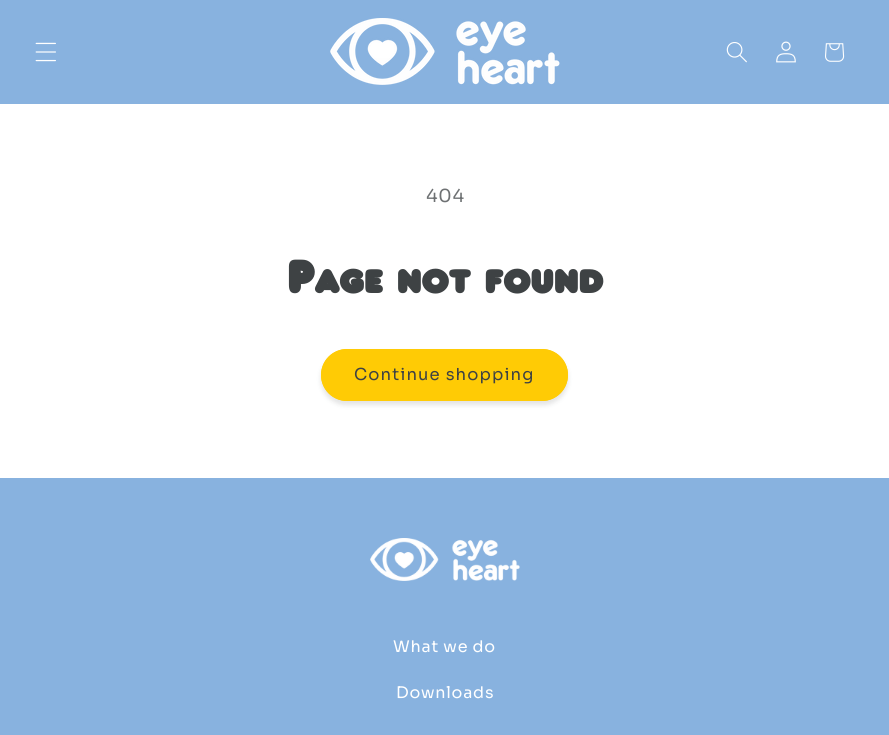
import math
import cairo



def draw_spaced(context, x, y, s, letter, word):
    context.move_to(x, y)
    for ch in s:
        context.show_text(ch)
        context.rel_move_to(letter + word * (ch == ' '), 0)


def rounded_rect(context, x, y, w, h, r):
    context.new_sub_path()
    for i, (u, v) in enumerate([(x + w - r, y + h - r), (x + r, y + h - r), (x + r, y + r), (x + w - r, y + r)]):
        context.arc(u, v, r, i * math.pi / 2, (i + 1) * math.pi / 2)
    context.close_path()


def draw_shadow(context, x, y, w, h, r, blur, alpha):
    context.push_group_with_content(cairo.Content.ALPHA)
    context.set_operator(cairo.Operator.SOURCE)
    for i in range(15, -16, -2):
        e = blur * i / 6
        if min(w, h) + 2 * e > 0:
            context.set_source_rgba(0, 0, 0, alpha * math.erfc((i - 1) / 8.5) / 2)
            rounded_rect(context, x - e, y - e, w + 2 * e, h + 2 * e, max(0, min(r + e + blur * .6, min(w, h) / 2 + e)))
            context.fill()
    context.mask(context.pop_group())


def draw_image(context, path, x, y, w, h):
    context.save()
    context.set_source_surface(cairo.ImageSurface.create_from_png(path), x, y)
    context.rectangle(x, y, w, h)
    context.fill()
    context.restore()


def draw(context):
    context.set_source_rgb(1, 1, 1)
    context.paint()
    context.set_source_rgb(136 / 255, 178 / 255, 223 / 255)
    context.rectangle(0, 0, 889, 104)
    context.fill()
    draw_image(context, "images/1.png", 35, 42, 21, 20)
    draw_image(context, "images/2.png", 330, 18, 230, 67)
    draw_image(context, "images/3.png", 726, 42, 21, 21)
    draw_image(context, "images/4.png", 776, 41, 20, 22)
    draw_image(context, "images/5.png", 825, 43, 20, 19)
    context.set_source_rgb(62 / 255, 66 / 255, 68 / 255)
    draw_shadow(context, 321, 353, 247, 52, 26, 2.5, 0.15)
    context.set_source_rgb(1, 203 / 255, 5 / 255)
    rounded_rect(context, 321, 349, 247, 52, 26)
    context.fill()
    rounded_rect(context, 321.5, 349.5, 246, 51, 25.5)
    context.set_line_width(1)
    context.stroke()
    context.set_source_rgb(136 / 255, 178 / 255, 223 / 255)
    context.rectangle(0, 478, 889, 257)
    context.fill()
    draw_image(context, "images/6.png", 370, 538, 150, 43)
    context.select_font_face("Sora")
    context.set_font_size(18)
    context.set_source_rgb(110 / 255, 113 / 255, 115 / 255)
    draw_spaced(context, 426, 202, "404", 0.75, 0)
    context.select_font_face("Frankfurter", cairo.FontSlant.NORMAL, cairo.FontWeight.BOLD)
    context.set_font_size(48)
    context.set_source_rgb(62 / 255, 66 / 255, 68 / 255)
    draw_spaced(context, 287, 293, "Page not found", 0.75, 0)
    context.select_font_face("Sora")
    context.set_font_size(16.5)
    draw_spaced(context, 354, 380, "Continue shopping", 1.1, 0)
    context.set_font_size(16)
    context.set_source_rgb(1, 1, 1)
    draw_spaced(context, 393, 652, "What we do", 0.75, 0)
    draw_spaced(context, 396, 698, "Downloads", 0.75, 0)


surface = cairo.ImageSurface(cairo.Format.RGB24, 889, 735)
context = cairo.Context(surface)
options = cairo.FontOptions()
options.set_hint_metrics(cairo.HintMetrics.OFF)
options.set_hint_style(cairo.HintStyle.NONE)
context.set_font_options(options)
context.set_miter_limit(4)
draw(context)
surface.write_to_png("out.png")
